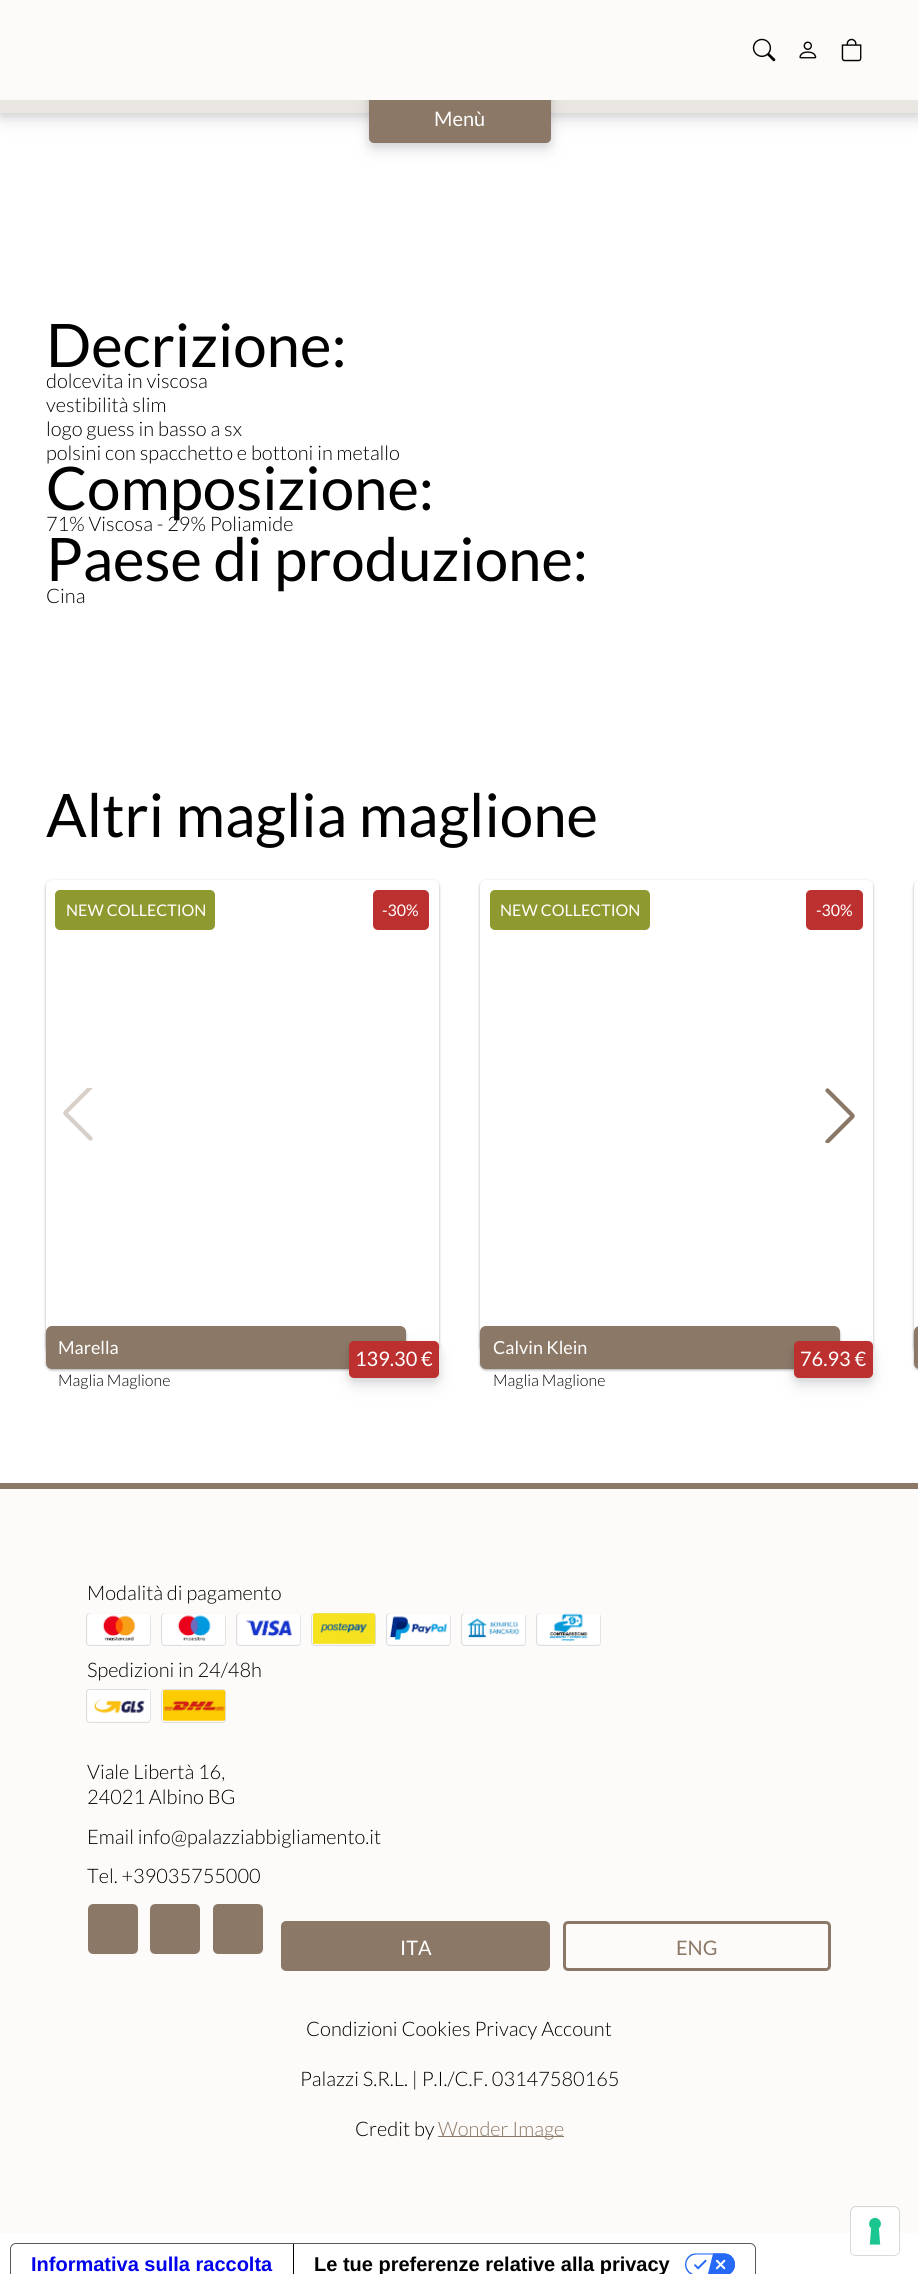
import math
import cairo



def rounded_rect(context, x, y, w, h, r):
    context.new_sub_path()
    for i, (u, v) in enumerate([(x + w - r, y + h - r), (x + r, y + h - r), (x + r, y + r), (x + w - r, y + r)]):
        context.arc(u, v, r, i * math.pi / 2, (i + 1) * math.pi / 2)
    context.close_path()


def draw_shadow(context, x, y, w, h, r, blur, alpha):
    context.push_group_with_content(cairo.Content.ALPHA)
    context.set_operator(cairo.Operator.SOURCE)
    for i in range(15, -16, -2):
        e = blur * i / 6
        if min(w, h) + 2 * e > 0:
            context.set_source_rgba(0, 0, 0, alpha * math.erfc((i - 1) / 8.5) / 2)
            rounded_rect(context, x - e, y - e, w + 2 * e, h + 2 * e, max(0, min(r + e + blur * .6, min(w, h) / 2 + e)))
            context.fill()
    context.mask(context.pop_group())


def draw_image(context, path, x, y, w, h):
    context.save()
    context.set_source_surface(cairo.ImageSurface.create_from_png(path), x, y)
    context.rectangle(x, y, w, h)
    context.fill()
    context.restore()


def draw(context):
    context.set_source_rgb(1, 1, 1)
    context.paint()
    context.set_source_rgb(0, 0, 0)
    draw_shadow(context, 0, 104, 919, 12, 0, 4, 0.12)
    context.set_source_rgb(60 / 255, 66 / 255, 87 / 255)
    draw_shadow(context, 0, 109, 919, 12, 0, 9, 0.12)
    context.set_source_rgb(234 / 255, 230 / 255, 225 / 255)
    context.rectangle(0, 100, 918, 13)
    context.fill()
    context.set_source_rgb(0, 0, 0)
    draw_shadow(context, 369, 61, 182, 85, 5, 4, 0.12)
    context.set_source_rgb(60 / 255, 66 / 255, 87 / 255)
    draw_shadow(context, 369, 66, 182, 85, 5, 9, 0.12)
    context.set_source_rgb(140 / 255, 120 / 255, 102 / 255)
    rounded_rect(context, 369, 58, 182, 85, 5)
    context.fill()
    context.set_source_rgb(252 / 255, 251 / 255, 250 / 255)
    context.rectangle(0, 0, 918, 100)
    context.fill()
    draw_image(context, "images/1.png", 752, 38, 24, 24)
    draw_image(context, "images/2.png", 799, 41, 18, 18)
    draw_image(context, "images/3.png", 841, 38, 21, 24)
    context.set_source_rgb(0, 0, 0)
    draw_shadow(context, 46, 881, 393, 472, 6, 1, 0.24)
    draw_shadow(context, 46, 881, 393, 472, 6, 2, 0.12)
    context.set_source_rgb(1, 1, 1)
    rounded_rect(context, 46, 880, 393, 471, 6)
    context.fill()
    context.set_source_rgb(142 / 255, 153 / 255, 47 / 255)
    rounded_rect(context, 55, 890, 160, 40, 5)
    context.fill()
    context.set_source_rgb(189 / 255, 48 / 255, 48 / 255)
    rounded_rect(context, 373, 890, 56, 40, 5)
    context.fill()
    context.set_source_rgb(0, 0, 0)
    draw_shadow(context, 46, 1328, 360, 42, 6, 1, 0.24)
    draw_shadow(context, 46, 1328, 360, 42, 6, 2, 0.12)
    context.set_source_rgb(140 / 255, 120 / 255, 102 / 255)
    rounded_rect(context, 46, 1326, 360, 43, 6)
    context.fill()
    context.set_source_rgb(0, 0, 0)
    draw_shadow(context, 349, 1345, 90, 36, 5, 4, 0.12)
    context.set_source_rgb(60 / 255, 66 / 255, 87 / 255)
    draw_shadow(context, 349, 1350, 90, 36, 5, 9, 0.12)
    context.set_source_rgb(189 / 255, 48 / 255, 48 / 255)
    rounded_rect(context, 349, 1341, 90, 37, 5)
    context.fill()
    context.set_source_rgb(0, 0, 0)
    draw_shadow(context, 480, 881, 393, 472, 6, 1, 0.24)
    draw_shadow(context, 480, 881, 393, 472, 6, 2, 0.12)
    context.set_source_rgb(1, 1, 1)
    rounded_rect(context, 480, 880, 393, 471, 6)
    context.fill()
    context.set_source_rgb(142 / 255, 153 / 255, 47 / 255)
    rounded_rect(context, 490, 890, 160, 40, 5)
    context.fill()
    context.set_source_rgb(189 / 255, 48 / 255, 48 / 255)
    rounded_rect(context, 806, 890, 57, 40, 5)
    context.fill()
    context.set_source_rgb(0, 0, 0)
    draw_shadow(context, 480, 1328, 360, 42, 6, 1, 0.24)
    draw_shadow(context, 480, 1328, 360, 42, 6, 2, 0.12)
    context.set_source_rgb(140 / 255, 120 / 255, 102 / 255)
    rounded_rect(context, 480, 1326, 360, 43, 6)
    context.fill()
    context.set_source_rgb(0, 0, 0)
    draw_shadow(context, 794, 1345, 79, 36, 5, 4, 0.12)
    context.set_source_rgb(60 / 255, 66 / 255, 87 / 255)
    draw_shadow(context, 794, 1350, 79, 36, 5, 9, 0.12)
    context.set_source_rgb(189 / 255, 48 / 255, 48 / 255)
    rounded_rect(context, 794, 1341, 79, 37, 5)
    context.fill()
    context.set_source_rgb(0, 0, 0)
    draw_shadow(context, 914, 881, 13, 472, 6, 1, 0.24)
    draw_shadow(context, 914, 881, 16, 472, 6, 2, 0.12)
    context.set_source_rgb(1, 1, 1)
    context.new_path()
    context.move_to(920, 880)
    context.line_to(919, 880)
    context.line_to(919, 1351)
    context.line_to(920, 1351)
    context.curve_to(916.5, 1351, 914, 1348.5, 914, 1345)
    context.line_to(914, 886)
    context.curve_to(914, 882.5, 916.5, 880, 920, 880)
    context.close_path()
    context.fill()
    context.set_source_rgb(0, 0, 0)
    draw_shadow(context, 914, 1328, 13, 42, 6, 1, 0.24)
    draw_shadow(context, 914, 1328, 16, 42, 6, 2, 0.12)
    context.set_source_rgb(140 / 255, 120 / 255, 102 / 255)
    context.new_path()
    context.move_to(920, 1326)
    context.line_to(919, 1326)
    context.line_to(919, 1369)
    context.line_to(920, 1369)
    context.curve_to(916.5, 1369, 914, 1366.5, 914, 1363)
    context.line_to(914, 1332)
    context.curve_to(914, 1328.5, 916.5, 1326, 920, 1326)
    context.close_path()
    context.fill()
    context.save()
    context.rectangle(51, 1088, 55, 55)
    context.clip()
    context.set_source_rgb(215 / 255, 208 / 255, 201 / 255)
    context.new_path()
    context.move_to(92, 1086)
    context.curve_to(93, 1087, 93, 1088, 92, 1089)
    context.line_to(68, 1113)
    context.line_to(92, 1137)
    context.curve_to(93, 1138, 93, 1139, 92, 1140)
    context.curve_to(91, 1141, 90, 1141, 89, 1140)
    context.line_to(64, 1115)
    context.curve_to(63, 1114, 63, 1112, 64, 1111)
    context.line_to(89, 1086)
    context.curve_to(90, 1085, 91, 1085, 92, 1086)
    context.close_path()
    context.fill()
    context.restore()
    context.new_path()
    context.move_to(826, 1143)
    context.curve_to(825, 1142, 825, 1141, 826, 1140)
    context.line_to(850, 1116)
    context.line_to(826, 1092)
    context.curve_to(825, 1091, 825, 1090, 826, 1089)
    context.curve_to(827, 1088, 828, 1088, 829, 1089)
    context.line_to(854, 1114)
    context.curve_to(855, 1115, 855, 1117, 854, 1118)
    context.line_to(829, 1143)
    context.curve_to(828, 1143, 827, 1143, 826, 1143)
    context.close_path()
    context.fill()
    context.set_source_rgb(252 / 255, 251 / 255, 250 / 255)
    context.rectangle(0, 1489, 918, 744)
    context.fill()
    context.set_source_rgb(140 / 255, 120 / 255, 102 / 255)
    context.rectangle(0, 1483, 918, 6)
    context.fill()
    rounded_rect(context, 86.5, 1613.5, 64, 32, 3.5)
    context.set_source_rgb(221 / 255, 221 / 255, 224 / 255)
    context.set_line_width(1)
    context.stroke()
    draw_image(context, "images/4.png", 88, 1613, 63, 31)
    rounded_rect(context, 161.5, 1613.5, 64, 32, 3.5)
    context.stroke()
    draw_image(context, "images/5.png", 163, 1613, 63, 31)
    rounded_rect(context, 236.5, 1613.5, 64, 32, 3.5)
    context.stroke()
    draw_image(context, "images/6.png", 238, 1613, 63, 31)
    rounded_rect(context, 311.5, 1613.5, 64, 32, 3.5)
    context.stroke()
    draw_image(context, "images/7.png", 313, 1613, 63, 31)
    rounded_rect(context, 386.5, 1613.5, 64, 32, 3.5)
    context.stroke()
    draw_image(context, "images/8.png", 388, 1613, 63, 31)
    rounded_rect(context, 461.5, 1613.5, 64, 32, 3.5)
    context.stroke()
    draw_image(context, "images/9.png", 463, 1613, 63, 31)
    rounded_rect(context, 536.5, 1613.5, 64, 32, 3.5)
    context.stroke()
    draw_image(context, "images/10.png", 538, 1613, 63, 31)
    rounded_rect(context, 86.5, 1689.5, 64, 33, 3.5)
    context.stroke()
    draw_image(context, "images/11.png", 88, 1690, 63, 31)
    rounded_rect(context, 161.5, 1689.5, 64, 33, 3.5)
    context.stroke()
    draw_image(context, "images/12.png", 163, 1690, 63, 31)
    context.set_source_rgb(140 / 255, 120 / 255, 102 / 255)
    rounded_rect(context, 89.5, 1905.5, 47, 47, 3.5)
    context.fill_preserve()
    context.set_line_width(3)
    context.stroke()
    rounded_rect(context, 151.5, 1905.5, 47, 47, 3.5)
    context.fill_preserve()
    context.stroke()
    rounded_rect(context, 214.5, 1905.5, 47, 47, 3.5)
    context.fill_preserve()
    context.stroke()
    rounded_rect(context, 282.5, 1922.5, 266, 47, 3.5)
    context.fill_preserve()
    context.stroke()
    rounded_rect(context, 564.5, 1922.5, 265, 47, 3.5)
    context.stroke()
    context.rectangle(438, 2136, 126, 1)
    context.fill()
    rounded_rect(context, 850.5, 2206.5, 49, 49, 5.5)
    context.set_source_rgba(0, 0, 0, 0.15)
    context.set_line_width(1)
    context.stroke()
    context.set_source_rgb(1, 1, 1)
    rounded_rect(context, 851, 2208, 48, 47, 5)
    context.fill()
    draw_image(context, "images/13.png", 869, 2217, 12, 28)
    rounded_rect(context, 10.5, 2243.5, 745, 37, 5.5)
    context.set_source_rgb(89 / 255, 89 / 255, 89 / 255)
    context.stroke()
    context.set_source_rgb(0, 0, 0)
    context.rectangle(293, 2244, 1, 30)
    context.fill()
    draw_image(context, "images/14.png", 685, 2253, 50, 21)
    context.select_font_face("Lato")
    context.set_font_size(20)
    context.set_source_rgb(1, 1, 1)
    context.move_to(434, 126)
    context.show_text("Menù")
    context.set_font_size(60)
    context.set_source_rgb(0, 0, 0)
    context.move_to(46, 367)
    context.show_text("Decrizione:")
    context.select_font_face("Lato Light")
    context.set_font_size(20)
    context.move_to(46, 388)
    context.show_text("dolcevita in viscosa")
    context.move_to(46, 412)
    context.show_text("vestibilità slim")
    context.move_to(46, 436)
    context.show_text("logo guess in basso a sx")
    context.move_to(46, 460)
    context.show_text("polsini con spacchetto e bottoni in metallo")
    context.select_font_face("Lato")
    context.set_font_size(60)
    context.move_to(46, 510)
    context.show_text("Composizione:")
    context.select_font_face("Lato Light")
    context.set_font_size(20)
    context.move_to(46, 531)
    context.show_text("71% Viscosa - 29% Poliamide")
    context.select_font_face("Lato")
    context.set_font_size(60)
    context.move_to(46, 581)
    context.show_text("Paese di produzione:")
    context.select_font_face("Lato Light")
    context.set_font_size(20)
    context.move_to(46, 603)
    context.show_text("Cina")
    context.select_font_face("Lato")
    context.set_font_size(60)
    context.move_to(46, 837)
    context.show_text("Altri maglia maglione")
    context.set_font_size(16)
    context.set_source_rgb(1, 1, 1)
    context.move_to(66, 916)
    context.show_text("NEW COLLECTION")
    context.move_to(382, 916)
    context.show_text("-30%")
    context.set_font_size(18)
    context.move_to(58, 1354)
    context.show_text("Marella")
    context.set_font_size(20)
    context.move_to(355, 1366)
    context.show_text("139.30 €")
    context.select_font_face("Lato Light")
    context.set_font_size(16)
    context.set_source_rgb(0, 0, 0)
    context.move_to(58, 1386)
    context.show_text("Maglia Maglione")
    context.select_font_face("Lato")
    context.set_source_rgb(1, 1, 1)
    context.move_to(500, 916)
    context.show_text("NEW COLLECTION")
    context.move_to(816, 916)
    context.show_text("-30%")
    context.set_font_size(18)
    context.move_to(493, 1354)
    context.show_text("Calvin Klein")
    context.set_font_size(20)
    context.move_to(800, 1366)
    context.show_text("76.93 €")
    context.select_font_face("Lato Light")
    context.set_font_size(16)
    context.set_source_rgb(0, 0, 0)
    context.move_to(493, 1386)
    context.show_text("Maglia Maglione")
    context.set_font_size(20)
    context.move_to(87, 1600)
    context.show_text("Modalità di pagamento")
    context.move_to(87, 1677)
    context.show_text("Spedizioni in 24/48h")
    context.move_to(87, 1779)
    context.show_text("Viale Libertà 16,")
    context.move_to(87, 1804)
    context.show_text("24021 Albino BG")
    context.move_to(87, 1844)
    context.show_text("Email info@palazziabbigliamento.it")
    context.move_to(87, 1883)
    context.show_text("Tel. +39035755000")
    context.select_font_face("Lato")
    context.set_source_rgb(1, 1, 1)
    context.move_to(400, 1955)
    context.show_text("ITA")
    context.set_source_rgb(140 / 255, 120 / 255, 102 / 255)
    context.move_to(676, 1955)
    context.show_text("ENG")
    context.select_font_face("Lato Light")
    context.set_source_rgb(0, 0, 0)
    context.move_to(306, 2036)
    context.show_text("Condizioni Cookies Privacy Account")
    context.move_to(300, 2086)
    context.show_text("Palazzi S.R.L. | P.I./C.F. 03147580165")
    context.move_to(355, 2136)
    context.show_text("Credit by")
    context.set_source_rgb(140 / 255, 120 / 255, 102 / 255)
    context.move_to(438, 2136)
    context.show_text("Wonder Image")
    context.select_font_face("Liberation Sans", cairo.FontSlant.NORMAL, cairo.FontWeight.BOLD)
    context.set_source_rgb(0, 0, 238 / 255)
    context.move_to(31, 2271)
    context.show_text("Informativa sulla raccolta")
    context.set_source_rgb(0, 0, 0)
    context.move_to(314, 2271)
    context.show_text("Le tue preferenze relative alla privacy")


surface = cairo.ImageSurface(cairo.Format.RGB24, 918, 2274)
context = cairo.Context(surface)
options = cairo.FontOptions()
options.set_hint_metrics(cairo.HintMetrics.OFF)
options.set_hint_style(cairo.HintStyle.NONE)
context.set_font_options(options)
context.set_miter_limit(4)
draw(context)
surface.write_to_png("out.png")
